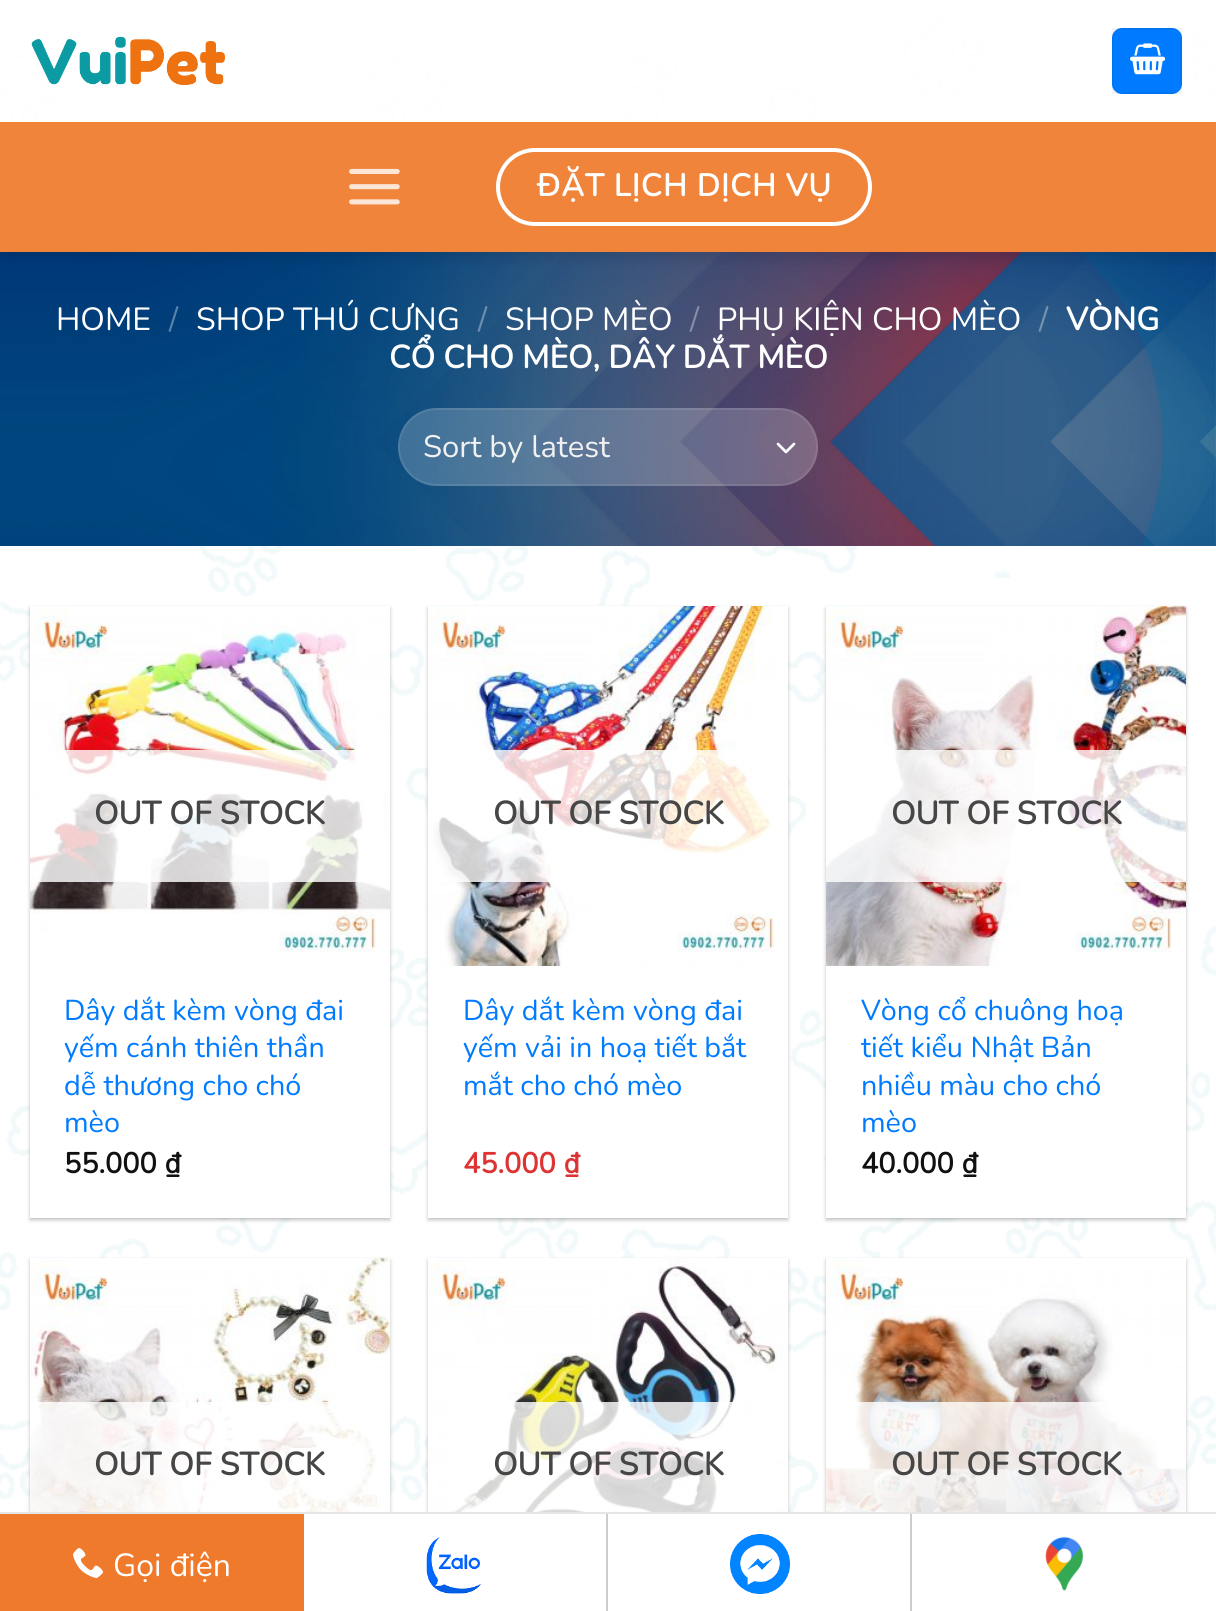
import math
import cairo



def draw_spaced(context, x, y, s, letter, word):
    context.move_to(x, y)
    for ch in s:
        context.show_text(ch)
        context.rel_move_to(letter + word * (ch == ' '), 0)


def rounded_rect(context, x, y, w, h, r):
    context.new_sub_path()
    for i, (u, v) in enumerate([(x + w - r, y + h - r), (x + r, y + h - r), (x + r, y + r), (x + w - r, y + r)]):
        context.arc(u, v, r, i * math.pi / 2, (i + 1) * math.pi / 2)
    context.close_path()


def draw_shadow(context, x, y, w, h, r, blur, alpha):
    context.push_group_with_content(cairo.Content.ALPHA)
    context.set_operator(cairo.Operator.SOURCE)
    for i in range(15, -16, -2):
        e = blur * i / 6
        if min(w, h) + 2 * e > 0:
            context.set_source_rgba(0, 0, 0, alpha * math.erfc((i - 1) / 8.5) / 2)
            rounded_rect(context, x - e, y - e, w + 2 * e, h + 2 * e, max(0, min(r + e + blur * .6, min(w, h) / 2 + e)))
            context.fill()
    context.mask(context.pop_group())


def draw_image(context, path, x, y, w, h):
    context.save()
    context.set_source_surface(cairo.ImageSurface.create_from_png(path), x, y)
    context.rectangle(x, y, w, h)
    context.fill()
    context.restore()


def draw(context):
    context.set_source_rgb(1, 1, 1)
    context.paint()
    draw_image(context, "images/1.png", 0, 0, 1216, 1512)
    draw_image(context, "images/5.png", 0, 252, 1216, 294)
    context.set_source_rgba(0, 0, 0, 0.25)
    context.rectangle(0, 252, 1216, 294)
    context.fill()
    context.save()
    context.rectangle(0, 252, 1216, 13)
    context.clip()
    context.set_source_rgb(0, 0, 0)
    draw_shadow(context, 2, 2, 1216, 252, 0, 10, 0.15)
    context.restore()
    context.set_source_rgba(1, 1, 1, 0.9)
    context.rectangle(0, 17, 1216, 105)
    context.fill()
    draw_image(context, "images/2.png", 31, 36, 194, 50)
    context.set_source_rgb(0, 123 / 255, 1)
    rounded_rect(context, 1112, 28, 70, 66, 10)
    context.fill()
    context.rectangle(1113, 29, 68, 64)
    context.set_source_rgba(0, 0, 0, 0.05)
    context.stroke()
    draw_image(context, "images/3.png", 1130, 43, 36, 32)
    context.set_source_rgb(240 / 255, 132 / 255, 59 / 255)
    context.rectangle(0, 122, 1216, 130)
    context.fill()
    draw_image(context, "images/4.png", 349, 168, 51, 37)
    rounded_rect(context, 498, 150, 372, 74, 37)
    context.set_source_rgb(1, 1, 1)
    context.set_line_width(4)
    context.stroke()
    context.set_source_rgba(1, 1, 1, 0.2)
    rounded_rect(context, 398, 408, 420, 78, 39)
    context.fill()
    context.new_path()
    context.move_to(778, 444)
    context.line_to(786, 452)
    context.line_to(794, 444)
    context.set_source_rgb(1, 1, 1)
    context.set_line_width(2.7)
    context.set_line_cap(cairo.LineCap.ROUND)
    context.set_line_join(cairo.LineJoin.ROUND)
    context.stroke()
    rounded_rect(context, 399, 409, 418, 76, 38)
    context.set_source_rgba(1, 1, 1, 0.09)
    context.set_line_width(2)
    context.set_line_cap(cairo.LineCap.BUTT)
    context.set_line_join(cairo.LineJoin.MITER)
    context.stroke()
    context.set_source_rgb(0, 0, 0)
    draw_shadow(context, 30, 608, 360, 612, 0, 2, 0.24)
    draw_shadow(context, 34, 612, 352, 604, 0, 3, 0.12)
    context.set_source_rgb(1, 1, 1)
    context.rectangle(30, 953, 360, 265)
    context.fill()
    draw_image(context, "images/6.png", 30, 606, 360, 347)
    context.set_source_rgba(1, 1, 1, 0.81)
    context.rectangle(30, 750, 360, 132)
    context.fill()
    context.set_source_rgb(0, 0, 0)
    draw_shadow(context, 428, 608, 360, 612, 0, 2, 0.24)
    draw_shadow(context, 432, 612, 352, 604, 0, 3, 0.12)
    context.set_source_rgb(1, 1, 1)
    context.rectangle(428, 606, 360, 612)
    context.fill()
    draw_image(context, "images/7.png", 428, 606, 347, 360)
    context.set_source_rgba(1, 1, 1, 0.81)
    context.rectangle(430, 750, 345, 132)
    context.fill()
    context.set_source_rgb(0, 0, 0)
    draw_shadow(context, 826, 608, 360, 612, 0, 2, 0.24)
    draw_shadow(context, 830, 612, 352, 604, 0, 3, 0.12)
    context.set_source_rgb(1, 1, 1)
    context.rectangle(826, 966, 360, 252)
    context.fill()
    draw_image(context, "images/8.png", 826, 606, 360, 360)
    context.set_source_rgba(1, 1, 1, 0.81)
    context.rectangle(826, 750, 360, 132)
    context.fill()
    context.set_source_rgb(0, 0, 0)
    draw_shadow(context, 30, 1260, 360, 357, 0, 2, 0.24)
    draw_image(context, "images/9.png", 30, 1258, 360, 254)
    context.set_source_rgba(1, 1, 1, 0.81)
    context.rectangle(30, 1402, 356, 110)
    context.fill()
    context.set_source_rgb(0, 0, 0)
    draw_shadow(context, 428, 1260, 360, 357, 0, 2, 0.24)
    context.set_source_rgb(1, 1, 1)
    context.rectangle(783, 1258, 5, 254)
    context.fill()
    draw_image(context, "images/10.png", 428, 1258, 355, 254)
    context.set_source_rgba(1, 1, 1, 0.81)
    context.rectangle(447, 1402, 288, 110)
    context.fill()
    context.set_source_rgb(0, 0, 0)
    draw_shadow(context, 826, 1260, 360, 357, 0, 2, 0.24)
    draw_image(context, "images/11.png", 826, 1258, 360, 254)
    context.set_source_rgba(1, 1, 1, 0.81)
    context.rectangle(826, 1402, 360, 110)
    context.fill()
    context.set_source_rgb(229 / 255, 229 / 255, 229 / 255)
    context.rectangle(0, 1512, 1216, 2)
    context.fill()
    context.set_source_rgb(239 / 255, 122 / 255, 43 / 255)
    context.rectangle(0, 1514, 304, 97)
    context.fill()
    draw_image(context, "images/12.png", 73, 1548, 30, 30)
    context.set_source_rgb(1, 1, 1)
    context.rectangle(304, 1514, 302, 97)
    context.fill()
    context.set_source_rgb(204 / 255, 204 / 255, 204 / 255)
    context.rectangle(606, 1514, 2, 97)
    context.fill()
    draw_image(context, "images/13.png", 426, 1537, 55, 57)
    context.set_source_rgb(1, 1, 1)
    context.rectangle(608, 1514, 302, 97)
    context.fill()
    context.set_source_rgb(204 / 255, 204 / 255, 204 / 255)
    context.rectangle(910, 1514, 2, 97)
    context.fill()
    draw_image(context, "images/14.png", 730, 1534, 60, 60)
    context.set_source_rgb(1, 1, 1)
    context.rectangle(912, 1514, 277, 97)
    context.fill()
    draw_image(context, "images/15.png", 1045, 1536, 38, 55)
    context.select_font_face("Nunito", cairo.FontSlant.NORMAL, cairo.FontWeight.BOLD)
    context.set_font_size(31.25)
    draw_spaced(context, 537, 196, "ĐẶT LỊCH DỊCH VỤ", 1, 0)
    context.select_font_face("Nunito ExtraLight")
    context.set_font_size(32)
    context.move_to(56, 330)
    context.show_text("HOME")
    context.set_source_rgb(89 / 255, 130 / 255, 169 / 255)
    context.move_to(169, 330)
    context.show_text("/")
    context.set_source_rgb(1, 1, 1)
    context.move_to(196, 330)
    context.show_text("SHOP THÚ CƯNG")
    context.set_source_rgb(109 / 255, 143 / 255, 173 / 255)
    context.move_to(478, 330)
    context.show_text("/")
    context.set_source_rgb(1, 1, 1)
    context.move_to(505, 330)
    context.show_text("SHOP MÈO")
    context.set_source_rgb(135 / 255, 141 / 255, 165 / 255)
    context.move_to(690, 330)
    context.show_text("/")
    context.set_source_rgb(1, 1, 1)
    context.move_to(717, 330)
    context.show_text("PHỤ KIỆN CHO MÈO")
    context.set_source_rgb(117 / 255, 147 / 255, 177 / 255)
    context.move_to(1039, 330)
    context.show_text("/")
    context.select_font_face("Nunito", cairo.FontSlant.NORMAL, cairo.FontWeight.BOLD)
    context.set_source_rgb(1, 1, 1)
    context.move_to(1066, 330)
    context.show_text("VÒNG")
    context.move_to(389, 368)
    context.show_text("CỔ CHO MÈO, DÂY DẮT MÈO")
    context.select_font_face("Nunito ExtraLight")
    context.set_font_size(31)
    context.set_source_rgb(241 / 255, 241 / 255, 241 / 255)
    context.move_to(423, 457)
    context.show_text("Sort by latest")
    context.select_font_face("Nunito", cairo.FontSlant.NORMAL, cairo.FontWeight.BOLD)
    context.set_font_size(32)
    context.set_source_rgb(70 / 255, 70 / 255, 70 / 255)
    context.move_to(94, 824)
    context.show_text("OUT OF STOCK")
    context.select_font_face("Nunito ExtraLight")
    context.set_font_size(28.75)
    context.set_source_rgb(0, 123 / 255, 1)
    context.move_to(64, 1020)
    context.show_text("Dây dắt kèm vòng đai")
    context.move_to(64, 1057)
    context.show_text("yếm cánh thiên thần")
    context.move_to(64, 1095)
    context.show_text("dễ thương cho chó")
    context.move_to(64, 1132)
    context.show_text("mèo")
    context.select_font_face("Nunito", cairo.FontSlant.NORMAL, cairo.FontWeight.BOLD)
    context.set_source_rgb(17 / 255, 17 / 255, 17 / 255)
    context.move_to(64, 1173)
    context.show_text("55.000 ₫")
    context.set_font_size(32)
    context.set_source_rgb(70 / 255, 70 / 255, 70 / 255)
    context.move_to(493, 824)
    context.show_text("OUT OF STOCK")
    context.select_font_face("Nunito ExtraLight")
    context.set_font_size(28.75)
    context.set_source_rgb(0, 123 / 255, 1)
    context.move_to(463, 1020)
    context.show_text("Dây dắt kèm vòng đai")
    context.move_to(463, 1057)
    context.show_text("yếm vải in hoạ tiết bắt")
    context.move_to(463, 1095)
    context.show_text("mắt cho chó mèo")
    context.select_font_face("Nunito", cairo.FontSlant.NORMAL, cairo.FontWeight.BOLD)
    context.set_source_rgb(221 / 255, 51 / 255, 51 / 255)
    context.move_to(463, 1173)
    context.show_text("45.000 ₫")
    context.set_font_size(32)
    context.set_source_rgb(70 / 255, 70 / 255, 70 / 255)
    context.move_to(891, 824)
    context.show_text("OUT OF STOCK")
    context.select_font_face("Nunito ExtraLight")
    context.set_font_size(28.75)
    context.set_source_rgb(0, 123 / 255, 1)
    context.move_to(861, 1020)
    context.show_text("Vòng cổ chuông hoạ")
    context.move_to(861, 1057)
    context.show_text("tiết kiểu Nhật Bản")
    context.move_to(861, 1095)
    context.show_text("nhiều màu cho chó")
    context.move_to(861, 1132)
    context.show_text("mèo")
    context.select_font_face("Nunito", cairo.FontSlant.NORMAL, cairo.FontWeight.BOLD)
    context.set_source_rgb(17 / 255, 17 / 255, 17 / 255)
    context.move_to(861, 1173)
    context.show_text("40.000 ₫")
    context.set_font_size(32)
    context.set_source_rgb(70 / 255, 70 / 255, 70 / 255)
    context.move_to(94, 1475)
    context.show_text("OUT OF STOCK")
    context.move_to(493, 1475)
    context.show_text("OUT OF STOCK")
    context.move_to(891, 1475)
    context.show_text("OUT OF STOCK")
    context.select_font_face("Nunito ExtraLight")
    context.set_source_rgb(1, 1, 1)
    context.move_to(113, 1576)
    context.show_text("Gọi điện")


surface = cairo.ImageSurface(cairo.Format.RGB24, 1216, 1611)
context = cairo.Context(surface)
options = cairo.FontOptions()
options.set_hint_metrics(cairo.HintMetrics.OFF)
options.set_hint_style(cairo.HintStyle.NONE)
context.set_font_options(options)
context.set_miter_limit(4)
draw(context)
surface.write_to_png("out.png")
